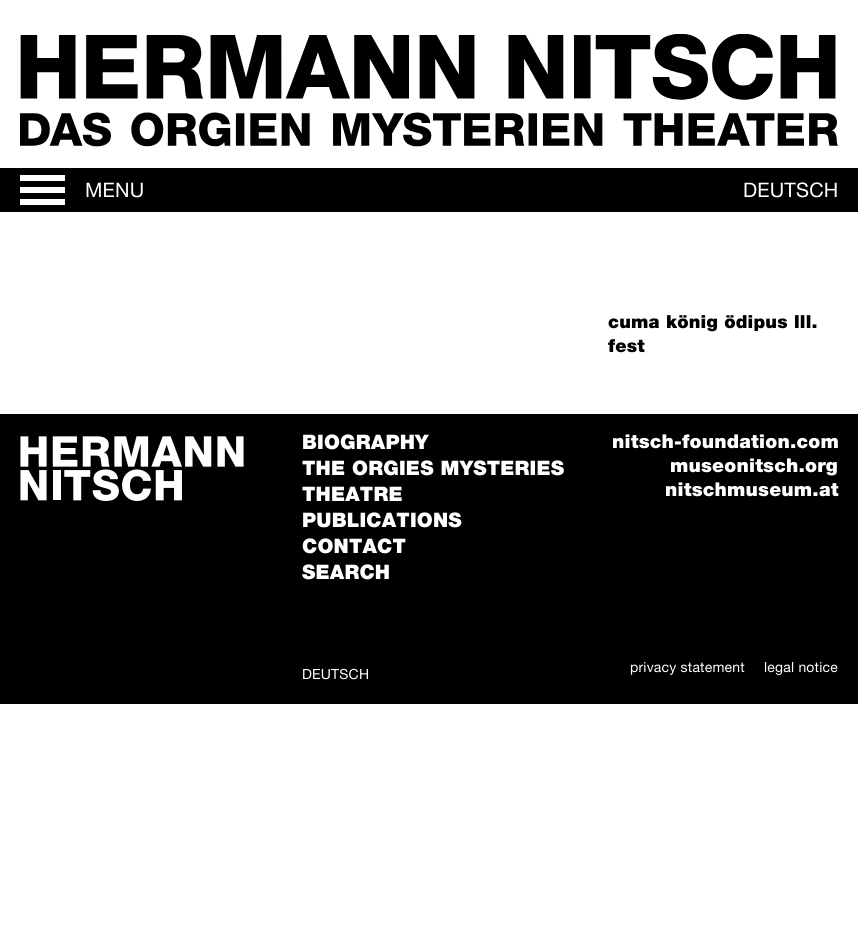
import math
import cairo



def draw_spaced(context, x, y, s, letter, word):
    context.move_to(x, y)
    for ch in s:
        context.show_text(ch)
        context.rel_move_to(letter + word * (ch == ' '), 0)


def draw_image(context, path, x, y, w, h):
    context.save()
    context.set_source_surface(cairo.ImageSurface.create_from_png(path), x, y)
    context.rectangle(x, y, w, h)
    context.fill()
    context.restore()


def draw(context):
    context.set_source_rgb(1, 1, 1)
    context.paint()
    draw_image(context, "images/1.png", 20, 34, 818, 113)
    context.set_source_rgb(0, 0, 0)
    context.rectangle(0, 168, 858, 44)
    context.fill()
    context.set_source_rgb(1, 1, 1)
    context.rectangle(20, 175, 45, 6)
    context.fill()
    context.rectangle(20, 187, 45, 6)
    context.fill()
    context.rectangle(20, 199, 45, 6)
    context.fill()
    context.set_source_rgb(0, 0, 0)
    context.rectangle(0, 414, 858, 290)
    context.fill()
    draw_image(context, "images/2.png", 20, 436, 224, 65)
    context.select_font_face("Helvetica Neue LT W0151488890")
    context.set_font_size(20)
    context.set_source_rgb(1, 1, 1)
    draw_spaced(context, 85, 197, "MENU", 0.2, 0)
    draw_spaced(context, 743, 197, "DEUTSCH", 0.2, 0)
    context.select_font_face("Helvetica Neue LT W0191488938 Black")
    context.set_font_size(18)
    context.set_source_rgb(0, 0, 0)
    draw_spaced(context, 608, 328, "cuma könig ödipus lll.", 0.2, 0)
    draw_spaced(context, 608, 352, "fest", 0.2, 0)
    context.set_font_size(20)
    context.set_source_rgb(1, 1, 1)
    draw_spaced(context, 302, 449, "BIOGRAPHY", 0.2, 0)
    draw_spaced(context, 302, 475, "THE ORGIES MYSTERIES", 0.2, 0)
    draw_spaced(context, 302, 501, "THEATRE", 0.2, 0)
    draw_spaced(context, 302, 527, "PUBLICATIONS", 0.2, 0)
    draw_spaced(context, 302, 553, "CONTACT", 0.2, 0)
    draw_spaced(context, 302, 579, "SEARCH", 0.2, 0)
    context.select_font_face("Helvetica Neue LT W0151488890")
    context.set_font_size(14)
    draw_spaced(context, 302, 679, "DEUTSCH", 0.2, 0)
    context.select_font_face("Helvetica Neue LT W0191488938 Black")
    context.set_font_size(19)
    draw_spaced(context, 612, 448, "nitsch-foundation.com", 0.2, 0)
    draw_spaced(context, 670, 472, "museonitsch.org", 0.2, 0)
    draw_spaced(context, 665, 496, "nitschmuseum.at", 0.2, 0)
    context.select_font_face("Helvetica Neue LT W0151488890")
    context.set_font_size(14)
    draw_spaced(context, 630, 672, "privacy statement", 0.2, 0)
    draw_spaced(context, 764, 672, "legal notice", 0.2, 0)


surface = cairo.ImageSurface(cairo.Format.RGB24, 858, 933)
context = cairo.Context(surface)
options = cairo.FontOptions()
options.set_hint_metrics(cairo.HintMetrics.OFF)
options.set_hint_style(cairo.HintStyle.NONE)
context.set_font_options(options)
context.set_miter_limit(4)
draw(context)
surface.write_to_png("out.png")
